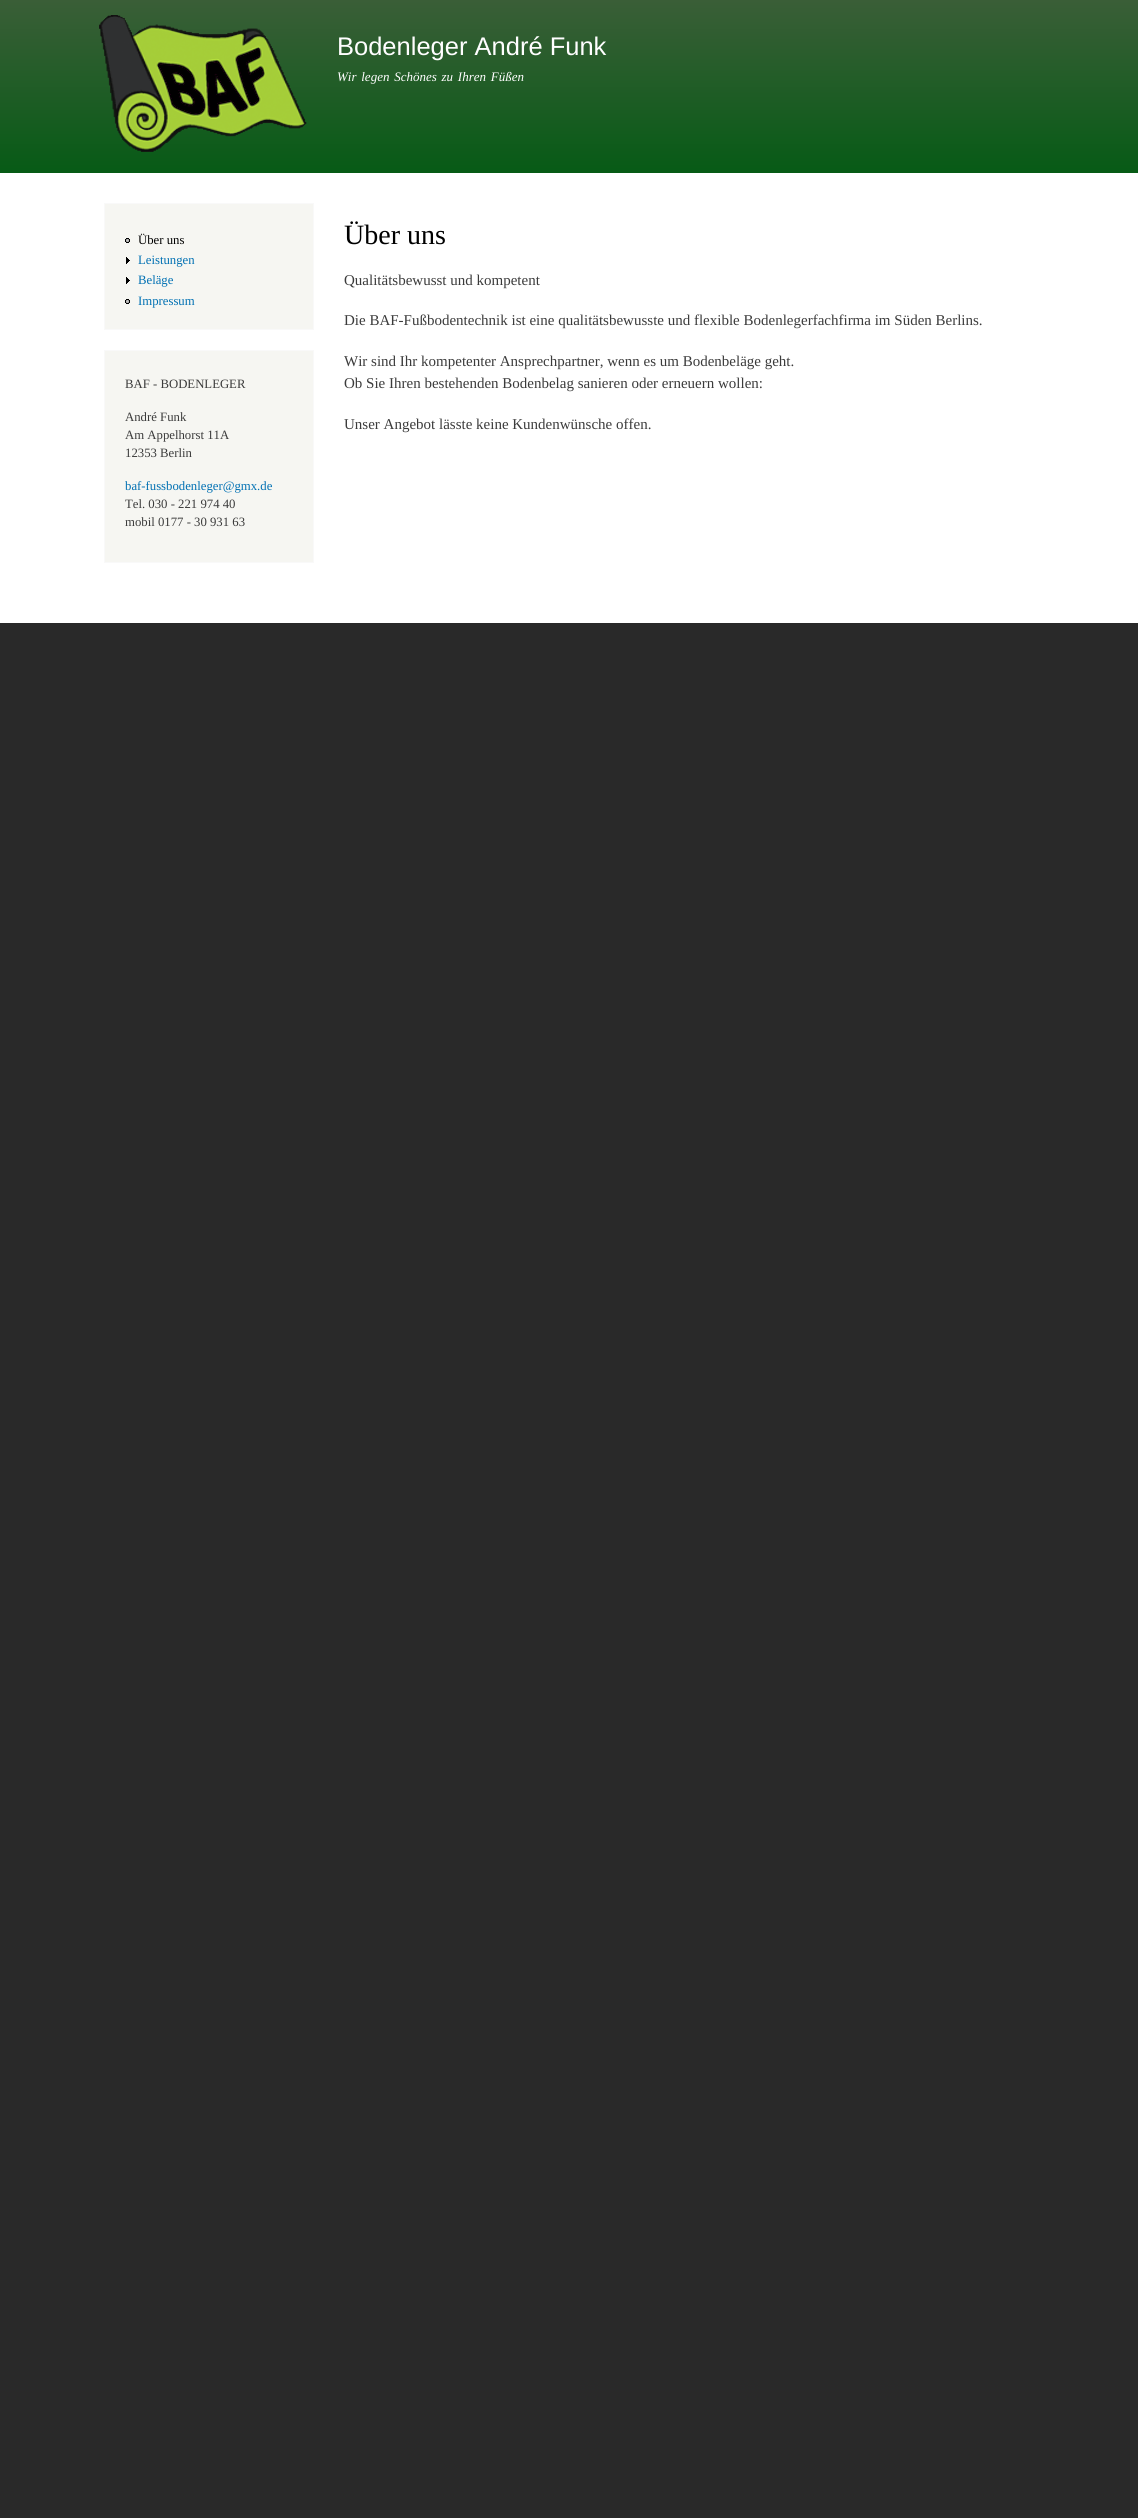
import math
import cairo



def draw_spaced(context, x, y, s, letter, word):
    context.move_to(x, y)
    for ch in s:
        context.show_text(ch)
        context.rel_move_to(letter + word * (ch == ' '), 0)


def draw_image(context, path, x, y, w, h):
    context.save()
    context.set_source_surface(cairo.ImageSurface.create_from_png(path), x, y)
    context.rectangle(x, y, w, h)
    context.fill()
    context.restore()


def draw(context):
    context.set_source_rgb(41 / 255, 41 / 255, 41 / 255)
    context.paint()
    context.set_source_rgb(1, 1, 1)
    context.rectangle(0, 173, 1138, 450)
    context.fill()
    gradient = cairo.LinearGradient(569, 0, 569, 173)
    gradient.add_color_stop_rgba(0, 58 / 255, 94 / 255, 55 / 255, 1)
    gradient.add_color_stop_rgba(1, 7 / 255, 91 / 255, 22 / 255, 1)
    context.set_source(gradient)
    context.rectangle(0, 0, 1138, 173)
    context.fill()
    draw_image(context, "images/1.png", 99, 15, 208, 137)
    context.set_source_rgb(246 / 255, 246 / 255, 242 / 255)
    context.rectangle(104.5, 203.5, 209, 126)
    context.fill_preserve()
    context.set_source_rgb(249 / 255, 249 / 255, 249 / 255)
    context.set_line_width(1)
    context.stroke()
    draw_image(context, "images/2.png", 125, 238, 5, 5)
    draw_image(context, "images/3.png", 126, 257, 4, 7)
    draw_image(context, "images/3.png", 126, 277, 4, 7)
    draw_image(context, "images/2.png", 125, 299, 5, 5)
    context.set_source_rgb(246 / 255, 246 / 255, 242 / 255)
    context.rectangle(104.5, 350.5, 209, 212)
    context.fill_preserve()
    context.set_source_rgb(249 / 255, 249 / 255, 249 / 255)
    context.stroke()
    context.select_font_face("Liberation Sans")
    context.set_font_size(25.5)
    context.set_source_rgb(1, 254 / 255, 1)
    context.move_to(337, 55)
    context.show_text("Bodenleger André Funk")
    context.select_font_face("Liberation Serif", cairo.FontSlant.ITALIC)
    context.set_font_size(13)
    draw_spaced(context, 337, 81, "Wir legen Schönes zu Ihren Füßen", 0, 1.5)
    context.select_font_face("Liberation Serif")
    context.set_font_size(12.75)
    context.set_source_rgb(0, 0, 0)
    context.move_to(138, 244)
    context.show_text("Über uns")
    context.set_source_rgb(0, 112 / 255, 179 / 255)
    context.move_to(138, 264)
    context.show_text("Leistungen")
    context.move_to(138, 284)
    context.show_text("Beläge")
    context.move_to(138, 305)
    context.show_text("Impressum")
    context.set_source_rgb(59 / 255, 59 / 255, 59 / 255)
    context.move_to(125, 388)
    context.show_text("BAF - BODENLEGER")
    context.move_to(125, 421)
    context.show_text("André Funk")
    context.move_to(125, 439)
    context.show_text("Am Appelhorst 11A")
    context.move_to(125, 457)
    context.show_text("12353 Berlin")
    context.set_source_rgb(0, 112 / 255, 179 / 255)
    context.move_to(125, 490)
    context.show_text("baf-fussbodenleger@gmx.de")
    context.set_source_rgb(59 / 255, 59 / 255, 59 / 255)
    context.move_to(125, 508)
    context.show_text("Tel. 030 - 221 974 40")
    context.move_to(125, 526)
    context.show_text("mobil 0177 - 30 931 63")
    context.set_font_size(28)
    context.set_source_rgb(0, 0, 0)
    context.move_to(344, 244)
    context.show_text("Über uns")
    context.set_font_size(15)
    context.set_source_rgb(59 / 255, 59 / 255, 59 / 255)
    context.move_to(344, 285)
    context.show_text("Qualitätsbewusst und kompetent")
    context.move_to(344, 325)
    context.show_text("Die BAF-Fußbodentechnik ist eine qualitätsbewusste und flexible Bodenlegerfachfirma im Süden Berlins.")
    context.move_to(344, 366)
    context.show_text("Wir sind Ihr kompetenter Ansprechpartner, wenn es um Bodenbeläge geht.")
    context.move_to(344, 388)
    context.show_text("Ob Sie Ihren bestehenden Bodenbelag sanieren oder erneuern wollen:")
    context.move_to(344, 429)
    context.show_text("Unser Angebot lässte keine Kundenwünsche offen.")


surface = cairo.ImageSurface(cairo.Format.RGB24, 1138, 2518)
context = cairo.Context(surface)
options = cairo.FontOptions()
options.set_hint_metrics(cairo.HintMetrics.OFF)
options.set_hint_style(cairo.HintStyle.NONE)
context.set_font_options(options)
context.set_miter_limit(4)
draw(context)
surface.write_to_png("out.png")
